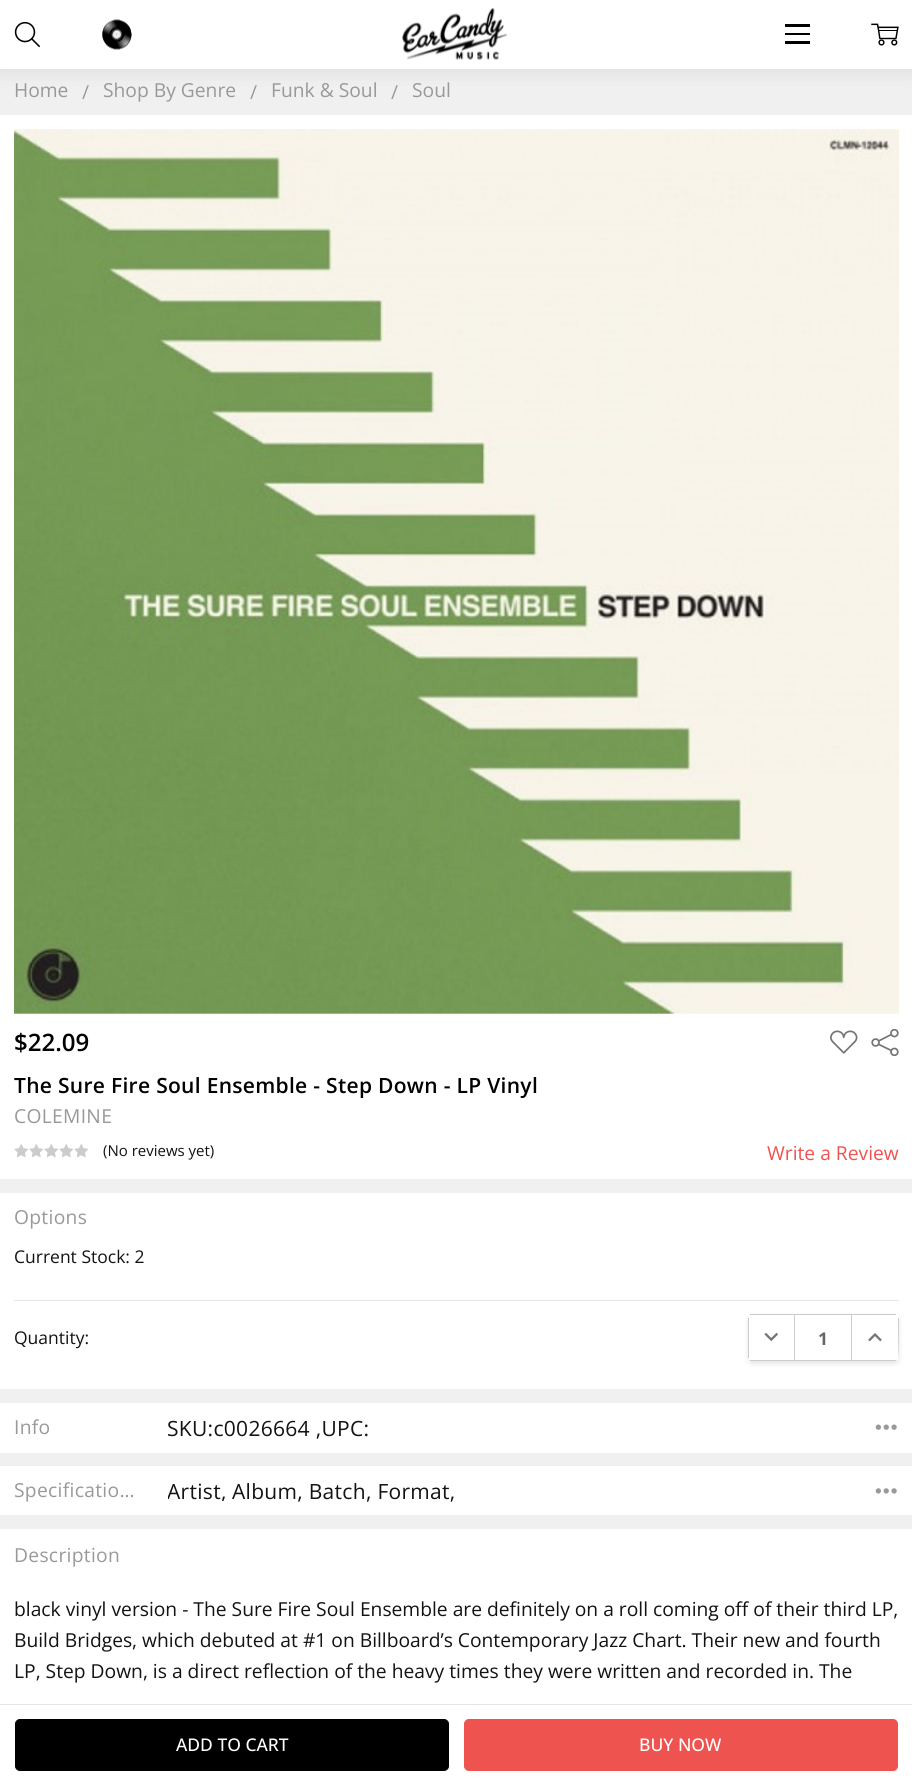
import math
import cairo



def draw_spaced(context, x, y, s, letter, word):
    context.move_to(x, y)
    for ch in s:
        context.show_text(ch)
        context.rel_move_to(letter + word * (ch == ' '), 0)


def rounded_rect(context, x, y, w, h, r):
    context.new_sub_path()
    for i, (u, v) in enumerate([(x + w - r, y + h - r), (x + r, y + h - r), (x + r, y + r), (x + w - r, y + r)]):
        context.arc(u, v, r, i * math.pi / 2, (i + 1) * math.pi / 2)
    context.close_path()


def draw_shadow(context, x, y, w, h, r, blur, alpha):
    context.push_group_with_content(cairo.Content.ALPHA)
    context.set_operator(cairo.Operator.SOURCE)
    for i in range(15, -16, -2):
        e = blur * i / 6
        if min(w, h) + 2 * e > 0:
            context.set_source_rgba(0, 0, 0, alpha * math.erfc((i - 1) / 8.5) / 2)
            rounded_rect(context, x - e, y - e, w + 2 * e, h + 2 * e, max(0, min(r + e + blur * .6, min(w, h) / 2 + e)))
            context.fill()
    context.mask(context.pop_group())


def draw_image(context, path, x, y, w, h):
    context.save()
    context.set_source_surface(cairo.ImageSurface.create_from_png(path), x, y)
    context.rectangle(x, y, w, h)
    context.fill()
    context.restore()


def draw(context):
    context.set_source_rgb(1, 1, 1)
    context.paint()
    context.set_source_rgb(240 / 255, 240 / 255, 240 / 255)
    context.rectangle(0, 70, 912, 45)
    context.fill()
    context.set_source_rgb(0, 0, 0)
    draw_shadow(context, 0, 0, 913, 70, 0, 9.5, 0.1)
    context.set_source_rgb(1, 1, 1)
    context.rectangle(0, 0, 912, 69)
    context.fill()
    context.set_source_rgb(229 / 255, 229 / 255, 229 / 255)
    context.rectangle(0, 69, 912, 1)
    context.fill()
    draw_image(context, "images/1.png", 402, 7, 106, 53)
    draw_image(context, "images/2.png", 14, 21, 27, 27)
    draw_image(context, "images/3.png", 102, 19, 30, 31)
    context.set_source_rgb(0, 0, 0)
    context.rectangle(785, 24, 25, 3)
    context.fill()
    context.rectangle(785, 33, 25, 2)
    context.fill()
    context.rectangle(785, 41, 25, 3)
    context.fill()
    draw_image(context, "images/4.png", 871, 23, 28, 23)
    context.set_source_rgb(240 / 255, 240 / 255, 240 / 255)
    context.rectangle(0, 1179, 912, 350)
    context.fill()
    draw_image(context, "images/5.png", 14, 129, 885, 885)
    draw_image(context, "images/6.png", 830, 1030, 28, 24)
    draw_image(context, "images/7.png", 871, 1029, 28, 27)
    draw_image(context, "images/8.png", 14, 1144, 14, 14)
    draw_image(context, "images/8.png", 29, 1144, 14, 14)
    draw_image(context, "images/8.png", 44, 1144, 14, 14)
    draw_image(context, "images/8.png", 59, 1144, 14, 14)
    draw_image(context, "images/8.png", 74, 1144, 14, 14)
    context.set_source_rgb(1, 1, 1)
    context.rectangle(0, 1193, 912, 196)
    context.fill()
    context.set_source_rgb(229 / 255, 229 / 255, 229 / 255)
    context.rectangle(14, 1300, 885, 1)
    context.fill()
    context.save()
    context.set_fill_rule(cairo.FillRule.EVEN_ODD)
    context.new_path()
    context.move_to(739, 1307)
    context.line_to(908, 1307)
    context.line_to(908, 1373)
    context.line_to(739, 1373)
    context.close_path()
    context.move_to(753, 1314)
    context.line_to(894, 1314)
    context.curve_to(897, 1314, 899, 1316, 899, 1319)
    context.line_to(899, 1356)
    context.curve_to(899, 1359, 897, 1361, 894, 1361)
    context.line_to(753, 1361)
    context.curve_to(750, 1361, 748, 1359, 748, 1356)
    context.line_to(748, 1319)
    context.curve_to(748, 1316, 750, 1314, 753, 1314)
    context.close_path()
    context.clip()
    context.set_source_rgb(0, 0, 0)
    draw_shadow(context, 748, 1316, 151, 48, 5, 2.5, 0.1)
    context.restore()
    context.set_source_rgb(204 / 255, 204 / 255, 204 / 255)
    context.rectangle(750, 1314, 146, 1)
    context.fill()
    context.rectangle(750, 1360, 146, 1)
    context.fill()
    context.rectangle(794, 1315, 1, 45)
    context.fill()
    context.rectangle(748, 1318, 1, 40)
    context.fill()
    draw_image(context, "images/9.png", 764, 1332, 14, 10)
    context.set_source_rgb(1, 1, 1)
    context.new_path()
    context.move_to(851, 1315)
    context.line_to(851, 1360)
    context.line_to(887, 1360)
    context.curve_to(898, 1360, 899, 1361, 899, 1350)
    context.line_to(899, 1325)
    context.curve_to(899, 1321, 900, 1315, 894, 1315)
    context.close_path()
    context.fill()
    context.set_source_rgb(204 / 255, 204 / 255, 204 / 255)
    context.new_path()
    context.move_to(898, 1318)
    context.line_to(899, 1318)
    context.curve_to(899, 1321, 899, 1357, 898, 1358)
    context.close_path()
    context.fill()
    context.rectangle(851, 1315, 1, 45)
    context.fill()
    draw_image(context, "images/10.png", 868, 1333, 14, 9)
    context.set_source_rgb(229 / 255, 229 / 255, 229 / 255)
    context.rectangle(0, 1704, 912, 1)
    context.fill()
    context.set_source_rgb(0, 0, 0)
    rounded_rect(context, 15.5, 1719.5, 433, 51, 4.5)
    context.fill_preserve()
    context.set_line_width(1)
    context.stroke()
    context.set_source_rgb(238 / 255, 83 / 255, 79 / 255)
    rounded_rect(context, 464.5, 1719.5, 433, 51, 4.5)
    context.fill_preserve()
    context.stroke()
    context.set_source_rgb(1, 1, 1)
    context.rectangle(0, 1403, 912, 50)
    context.fill()
    draw_image(context, "images/11.png", 875, 1424, 22, 6)
    context.rectangle(0, 1466, 912, 49)
    context.fill()
    draw_image(context, "images/12.png", 875, 1488, 22, 6)
    context.select_font_face("Open Sans")
    context.set_font_size(19.25)
    context.set_source_rgb(153 / 255, 153 / 255, 153 / 255)
    context.move_to(14, 97)
    context.show_text("Home")
    context.move_to(82, 99)
    context.show_text("/")
    context.move_to(103, 97)
    context.show_text("Shop By Genre")
    context.move_to(250, 99)
    context.show_text("/")
    context.move_to(271, 97)
    context.show_text("Funk & Soul")
    context.move_to(391, 99)
    context.show_text("/")
    context.move_to(412, 97)
    context.show_text("Soul")
    context.select_font_face("Open Sans SemiBold")
    context.set_font_size(24)
    context.set_source_rgb(0, 0, 0)
    context.move_to(14, 1051)
    context.show_text("$22.09")
    context.set_font_size(21)
    draw_spaced(context, 14, 1093, "The Sure Fire Soul Ensemble - Step Down - LP Vinyl", 0.3, 0)
    context.select_font_face("Open Sans")
    context.set_font_size(19.25)
    context.set_source_rgb(153 / 255, 153 / 255, 153 / 255)
    draw_spaced(context, 14, 1123, "COLEMINE", 0.3, 0)
    context.set_font_size(15)
    context.set_source_rgb(19 / 255, 19 / 255, 19 / 255)
    context.move_to(103, 1156)
    context.show_text("(No reviews yet)")
    context.set_font_size(19.25)
    context.set_source_rgb(238 / 255, 83 / 255, 79 / 255)
    context.move_to(767, 1160)
    context.show_text("Write a Review")
    context.set_source_rgb(153 / 255, 153 / 255, 153 / 255)
    draw_spaced(context, 14, 1224, "Options", 0.3, 0)
    context.set_font_size(17.5)
    context.set_source_rgb(19 / 255, 19 / 255, 19 / 255)
    context.move_to(14, 1263)
    context.show_text("Current Stock: 2")
    context.move_to(14, 1344)
    context.show_text("Quantity:")
    context.select_font_face("Open Sans", cairo.FontSlant.NORMAL, cairo.FontWeight.BOLD)
    context.set_source_rgb(102 / 255, 102 / 255, 102 / 255)
    context.move_to(818, 1345)
    context.show_text("1")
    context.select_font_face("Open Sans Medium")
    context.set_source_rgb(1, 1, 1)
    context.move_to(176, 1751)
    context.show_text("ADD TO CART")
    context.move_to(639, 1751)
    context.show_text("BUY NOW")
    context.select_font_face("Open Sans")
    context.set_font_size(19.25)
    context.set_source_rgb(153 / 255, 153 / 255, 153 / 255)
    draw_spaced(context, 14, 1434, "Info", 0.3, 0)
    context.set_font_size(21)
    context.set_source_rgb(19 / 255, 19 / 255, 19 / 255)
    draw_spaced(context, 167, 1436, "SKU:c0026664 ,UPC:", 0.3, 0)
    context.set_font_size(19.25)
    context.set_source_rgb(153 / 255, 153 / 255, 153 / 255)
    draw_spaced(context, 14, 1497, "Specificatio…", 0.3, 0)
    context.save()
    context.rectangle(168, 1480, 677, 21)
    context.clip()
    context.set_font_size(21)
    context.set_source_rgb(19 / 255, 19 / 255, 19 / 255)
    draw_spaced(context, 167, 1499, "Artist,", 0.3, 0)
    context.restore()
    context.set_font_size(21)
    context.set_source_rgb(19 / 255, 19 / 255, 19 / 255)
    draw_spaced(context, 232, 1499, "Album, Batch, Format,", 0.3, 0)
    context.set_font_size(19.25)
    context.set_source_rgb(153 / 255, 153 / 255, 153 / 255)
    draw_spaced(context, 14, 1562, "Description", 0.3, 0)
    context.set_source_rgb(19 / 255, 19 / 255, 19 / 255)
    context.move_to(14, 1616)
    context.show_text("black vinyl version - The Sure Fire Soul Ensemble are definitely on a roll coming off of their third LP,")
    context.move_to(14, 1647)
    context.show_text("Build Bridges, which debuted at #1 on Billboard’s Contemporary Jazz Chart. Their new and fourth")
    context.move_to(14, 1678)
    context.show_text("LP, Step Down, is a direct reflection of the heavy times they were written and recorded in. The")


surface = cairo.ImageSurface(cairo.Format.RGB24, 912, 1785)
context = cairo.Context(surface)
options = cairo.FontOptions()
options.set_hint_metrics(cairo.HintMetrics.OFF)
options.set_hint_style(cairo.HintStyle.NONE)
context.set_font_options(options)
context.set_miter_limit(4)
draw(context)
surface.write_to_png("out.png")
